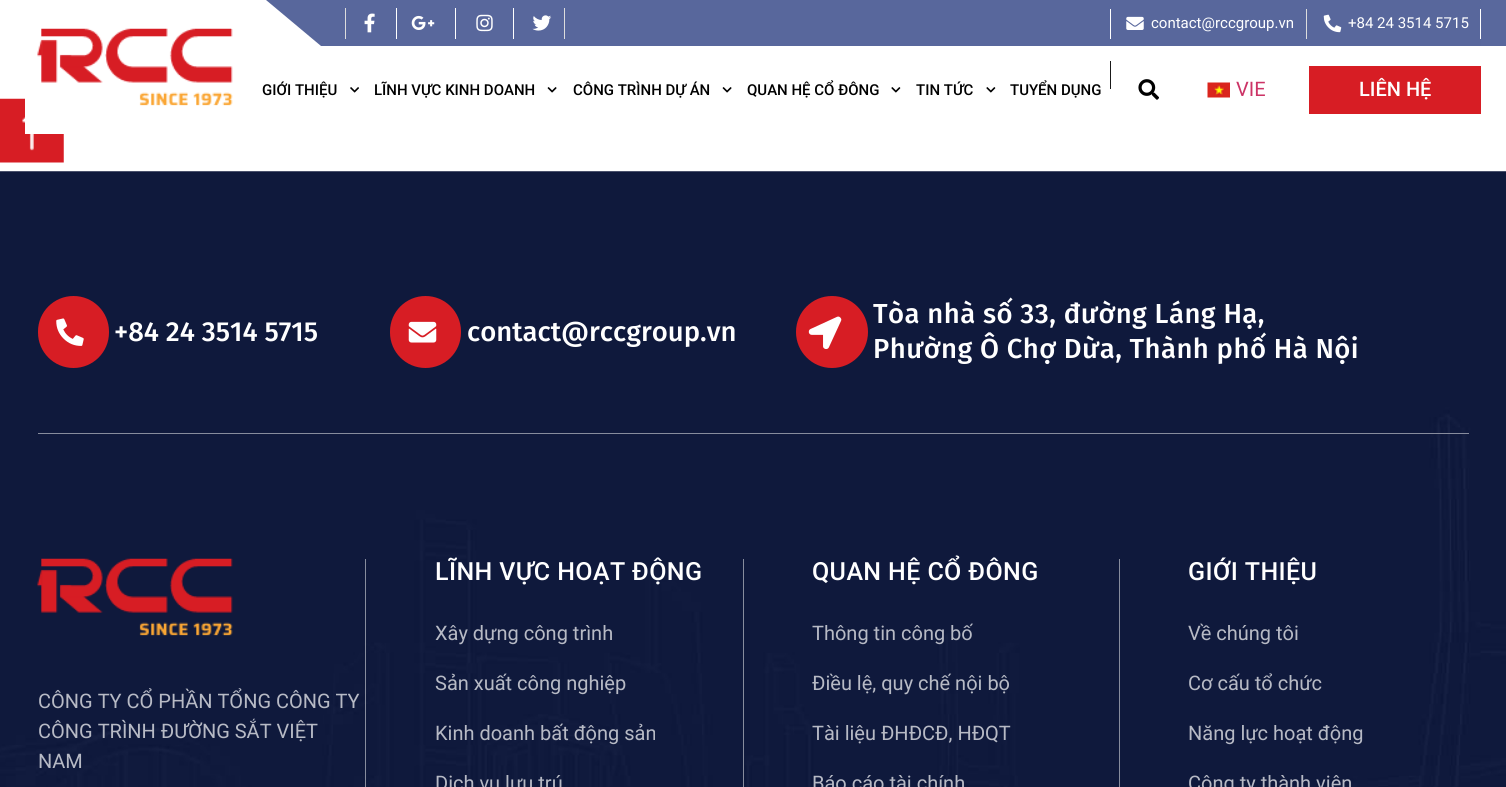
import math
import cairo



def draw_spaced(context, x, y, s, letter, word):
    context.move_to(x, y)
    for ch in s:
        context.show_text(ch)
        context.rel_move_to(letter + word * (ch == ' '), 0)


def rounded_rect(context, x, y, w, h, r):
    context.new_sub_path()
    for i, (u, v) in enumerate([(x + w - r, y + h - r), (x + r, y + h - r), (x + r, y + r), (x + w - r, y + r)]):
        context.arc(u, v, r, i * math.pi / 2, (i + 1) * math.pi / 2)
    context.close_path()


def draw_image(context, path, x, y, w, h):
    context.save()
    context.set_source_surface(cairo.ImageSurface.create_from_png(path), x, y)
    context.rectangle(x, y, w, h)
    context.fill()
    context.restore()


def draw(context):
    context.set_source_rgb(1, 1, 1)
    context.paint()
    draw_image(context, "images/13.png", 0, 98, 64, 65)
    context.set_source_rgb(1, 1, 1)
    context.rectangle(25, 98, 39, 36)
    context.fill()
    draw_image(context, "images/1.png", 37, 28, 196, 78)
    context.set_source_rgba(30 / 255, 51 / 255, 122 / 255, 0.74)
    context.rectangle(266, 0, 1215, 46)
    context.fill()
    context.set_source_rgb(1, 1, 1)
    context.new_path()
    context.move_to(197, 0)
    context.line_to(266, 0)
    context.line_to(321, 46)
    context.line_to(253, 46)
    context.close_path()
    context.fill()
    context.set_source_rgb(89 / 255, 104 / 255, 157 / 255)
    context.rectangle(1481, 0, 25, 46)
    context.fill()
    context.set_source_rgb(221 / 255, 221 / 255, 221 / 255)
    context.rectangle(564, 8, 1, 31)
    context.fill()
    context.rectangle(345, 8, 1, 31)
    context.fill()
    draw_image(context, "images/2.png", 364, 13, 11, 20)
    context.set_source_rgb(1, 1, 1)
    context.rectangle(396, 8, 1, 31)
    context.fill()
    draw_image(context, "images/3.png", 411, 15, 24, 15)
    context.rectangle(455, 8, 1, 31)
    context.fill()
    draw_image(context, "images/4.png", 476, 14, 17, 18)
    context.rectangle(513, 8, 1, 31)
    context.fill()
    draw_image(context, "images/5.png", 532, 15, 20, 16)
    context.rectangle(1110, 9, 1, 30)
    context.fill()
    draw_image(context, "images/6.png", 1126, 16, 18, 14)
    context.set_source_rgb(221 / 255, 221 / 255, 221 / 255)
    context.rectangle(1306, 9, 1, 30)
    context.fill()
    draw_image(context, "images/7.png", 1323, 14, 19, 19)
    context.set_source_rgb(1, 1, 1)
    context.rectangle(1480, 9, 1, 30)
    context.fill()
    draw_image(context, "images/8.png", 350, 87, 9, 6)
    draw_image(context, "images/9.png", 547, 87, 10, 6)
    draw_image(context, "images/9.png", 722, 87, 10, 6)
    draw_image(context, "images/10.png", 891, 87, 10, 6)
    draw_image(context, "images/10.png", 986, 87, 10, 6)
    context.set_source_rgb(25 / 255, 25 / 255, 25 / 255)
    context.rectangle(1110, 61, 1, 28)
    context.fill()
    draw_image(context, "images/11.png", 1138, 79, 21, 21)
    draw_image(context, "images/12.png", 1207, 82, 23, 16)
    context.set_source_rgb(215 / 255, 29 / 255, 36 / 255)
    context.rectangle(1309, 66, 172, 48)
    context.fill()
    draw_image(context, "images/14.png", 0, 171, 1506, 616)
    context.set_source_rgb(135 / 255, 140 / 255, 157 / 255)
    context.rectangle(38, 433, 1431, 1)
    context.fill()
    context.set_source_rgb(215 / 255, 29 / 255, 36 / 255)
    rounded_rect(context, 38, 296, 71, 72, 35.5)
    context.fill()
    draw_image(context, "images/15.png", 56, 318, 28, 28)
    rounded_rect(context, 390, 296, 71, 72, 35.5)
    context.fill()
    draw_image(context, "images/16.png", 408, 321, 29, 22)
    context.arc(832, 332, 36, 0, 2 * math.pi)
    context.fill()
    draw_image(context, "images/17.png", 808, 316, 34, 33)
    context.set_source_rgb(135 / 255, 140 / 255, 157 / 255)
    context.rectangle(365, 559, 1, 228)
    context.fill()
    draw_image(context, "images/18.png", 37, 558, 196, 78)
    context.rectangle(743, 559, 1, 228)
    context.fill()
    context.rectangle(1119, 559, 1, 228)
    context.fill()
    context.select_font_face("Roboto")
    context.set_font_size(15)
    context.set_source_rgb(1, 1, 1)
    context.move_to(1151, 28)
    context.show_text("contact@rccgroup.vn")
    context.move_to(1348, 28)
    context.show_text("+84 24 3514 5715")
    context.select_font_face("Roboto Medium")
    context.set_source_rgb(0, 0, 0)
    context.move_to(262, 95)
    context.show_text("GIỚI THIỆU")
    context.move_to(374, 95)
    context.show_text("LĨNH VỰC KINH DOANH")
    context.move_to(573, 95)
    context.show_text("CÔNG TRÌNH DỰ ÁN")
    context.move_to(747, 95)
    context.show_text("QUAN HỆ CỔ ĐÔNG")
    context.move_to(916, 95)
    context.show_text("TIN TỨC")
    context.move_to(1010, 95)
    context.show_text("TUYỂN DỤNG")
    context.select_font_face("Roboto")
    context.set_font_size(20)
    context.set_source_rgb(204 / 255, 51 / 255, 102 / 255)
    context.move_to(1236, 96)
    context.show_text("VIE")
    context.select_font_face("Roboto Medium")
    context.set_source_rgb(1, 1, 1)
    context.move_to(1359, 96)
    context.show_text("LIÊN HỆ")
    context.select_font_face("Fira Sans Medium")
    context.set_font_size(27.5)
    context.move_to(114, 341)
    context.show_text("+84 24 3514 5715")
    context.move_to(467, 341)
    context.show_text("contact@rccgroup.vn")
    draw_spaced(context, 873, 323, "Tòa nhà số 33, đường Láng Hạ,", 0.45, 0)
    draw_spaced(context, 873, 358, "Phường Ô Chợ Dừa, Thành phố Hà Nội", 0.45, 0)
    context.select_font_face("Roboto")
    context.set_font_size(20)
    context.set_source_rgb(183 / 255, 186 / 255, 197 / 255)
    context.move_to(38, 708)
    context.show_text("CÔNG TY CỔ PHẦN TỔNG CÔNG TY")
    context.move_to(38, 738)
    context.show_text("CÔNG TRÌNH ĐƯỜNG SẮT VIỆT")
    context.move_to(38, 768)
    context.show_text("NAM")
    context.select_font_face("Roboto Medium")
    context.set_font_size(25)
    context.set_source_rgb(1, 1, 1)
    draw_spaced(context, 435, 580, "LĨNH VỰC HOẠT ĐỘNG", 0.4, 0)
    context.select_font_face("Roboto")
    context.set_font_size(20)
    context.set_source_rgb(183 / 255, 186 / 255, 197 / 255)
    context.move_to(435, 640)
    context.show_text("Xây dựng công trình")
    context.move_to(435, 690)
    context.show_text("Sản xuất công nghiệp")
    context.move_to(435, 740)
    context.show_text("Kinh doanh bất động sản")
    context.move_to(435, 790)
    context.show_text("Dịch vụ lưu trú")
    context.select_font_face("Roboto Medium")
    context.set_font_size(25)
    context.set_source_rgb(1, 1, 1)
    draw_spaced(context, 812, 580, "QUAN HỆ CỔ ĐÔNG", 0.4, 0)
    context.select_font_face("Roboto")
    context.set_font_size(20)
    context.set_source_rgb(183 / 255, 186 / 255, 197 / 255)
    context.move_to(812, 640)
    context.show_text("Thông tin công bố")
    context.move_to(812, 690)
    context.show_text("Điều lệ, quy chế nội bộ")
    context.move_to(812, 740)
    context.show_text("Tài liệu ĐHĐCĐ, HĐQT")
    context.move_to(812, 790)
    context.show_text("Báo cáo tài chính")
    context.select_font_face("Roboto Medium")
    context.set_font_size(25)
    context.set_source_rgb(1, 1, 1)
    draw_spaced(context, 1188, 580, "GIỚI THIỆU", 0.4, 0)
    context.select_font_face("Roboto")
    context.set_font_size(20)
    context.set_source_rgb(183 / 255, 186 / 255, 197 / 255)
    context.move_to(1188, 640)
    context.show_text("Về chúng tôi")
    context.move_to(1188, 690)
    context.show_text("Cơ cấu tổ chức")
    context.move_to(1188, 740)
    context.show_text("Năng lực hoạt động")
    context.move_to(1188, 790)
    context.show_text("Công ty thành viên")


surface = cairo.ImageSurface(cairo.Format.RGB24, 1506, 787)
context = cairo.Context(surface)
options = cairo.FontOptions()
options.set_hint_metrics(cairo.HintMetrics.OFF)
options.set_hint_style(cairo.HintStyle.NONE)
context.set_font_options(options)
context.set_miter_limit(4)
draw(context)
surface.write_to_png("out.png")
